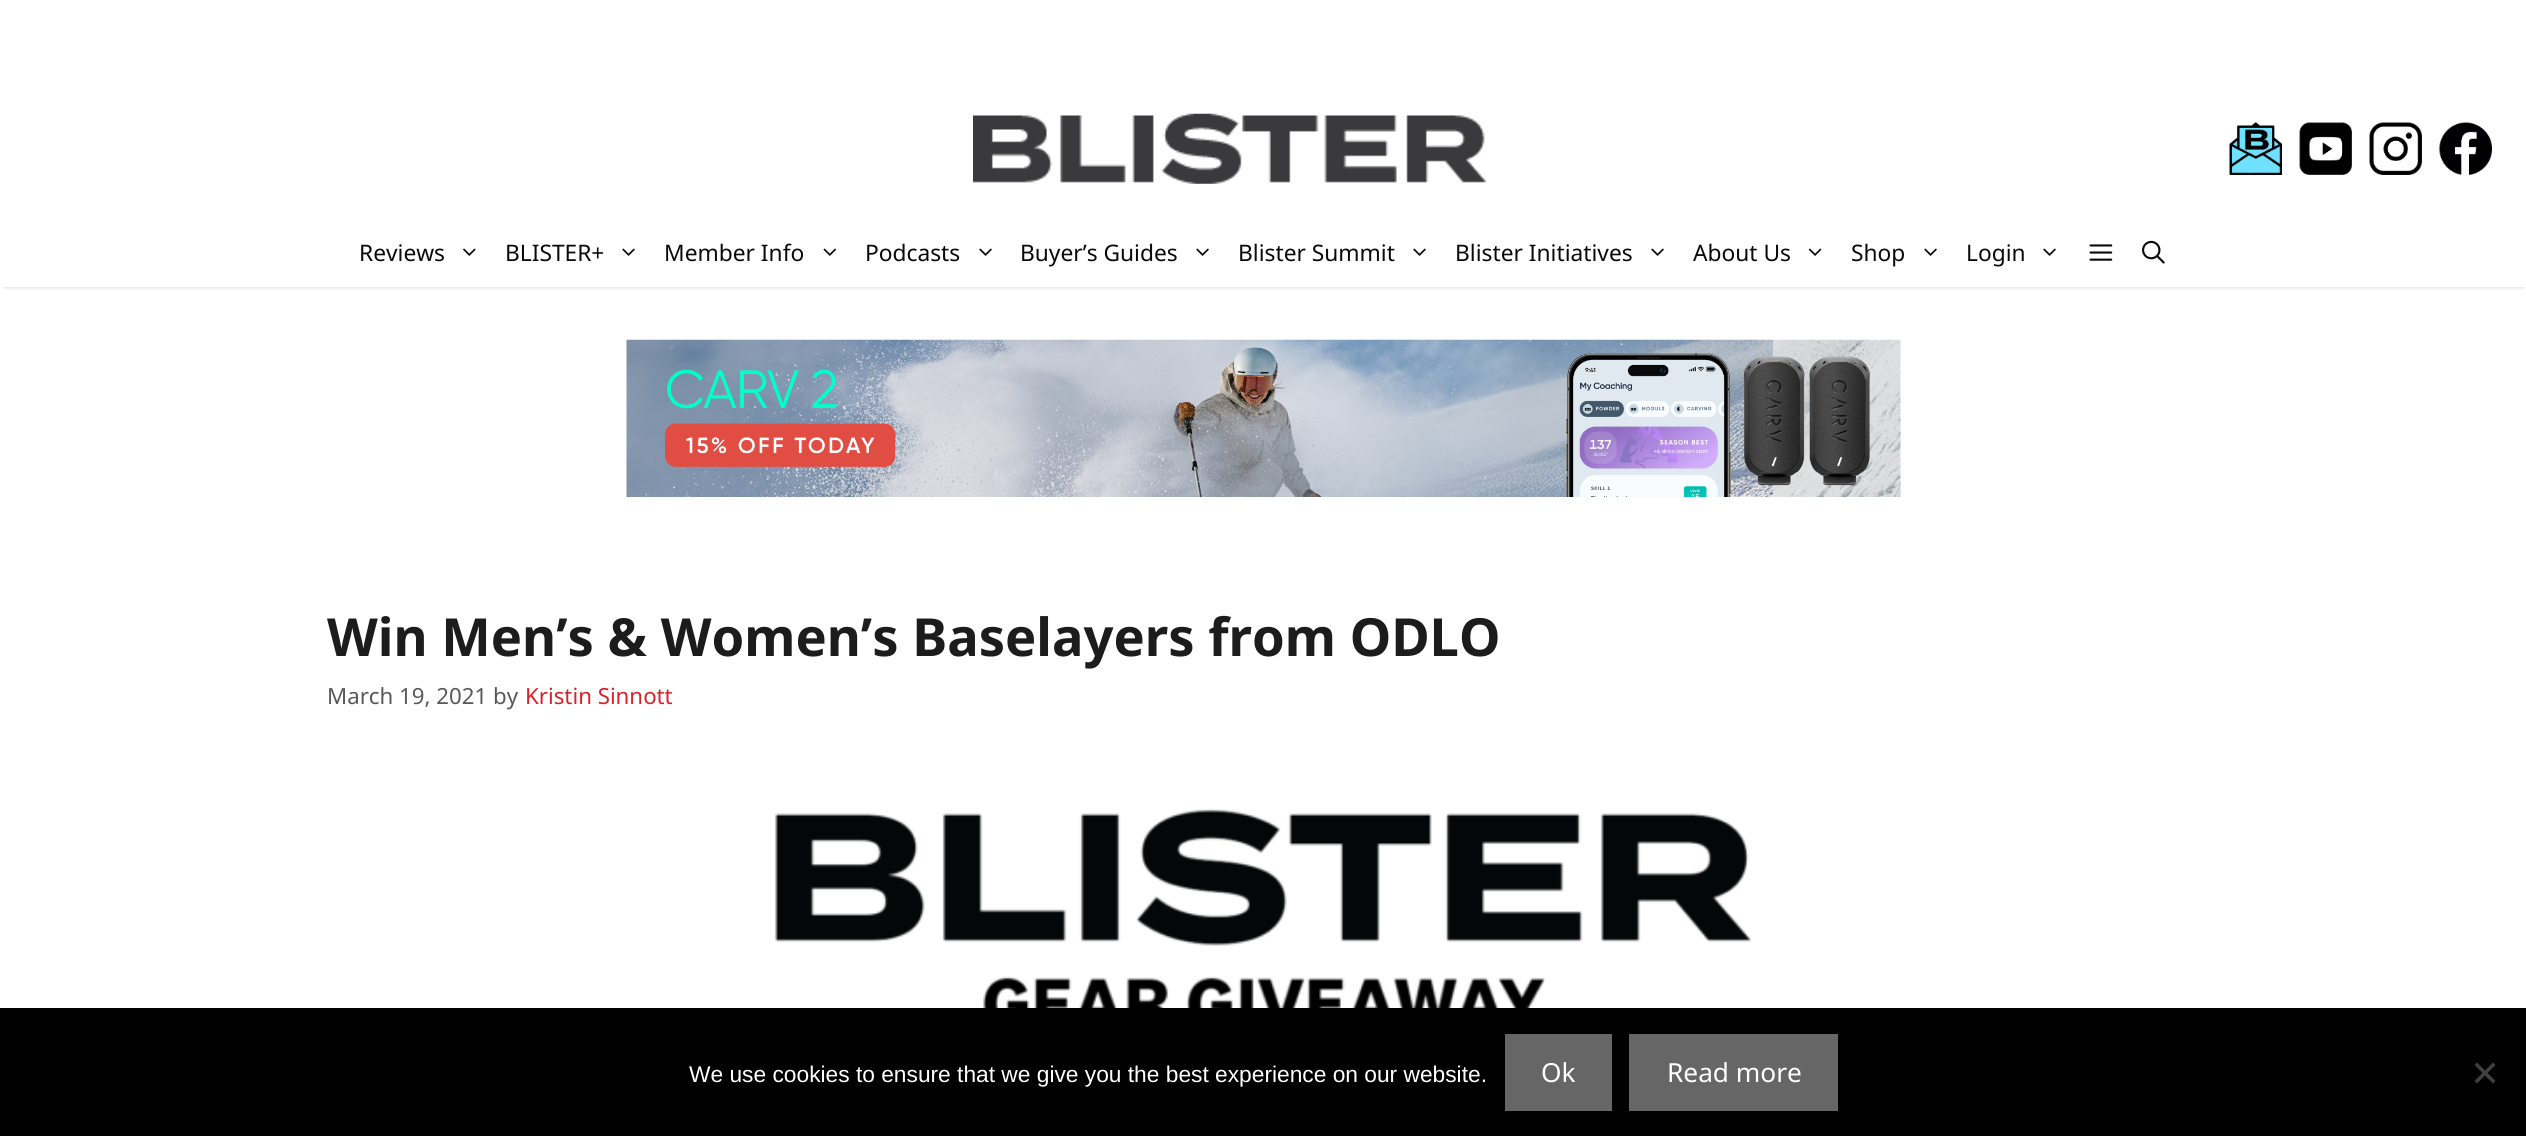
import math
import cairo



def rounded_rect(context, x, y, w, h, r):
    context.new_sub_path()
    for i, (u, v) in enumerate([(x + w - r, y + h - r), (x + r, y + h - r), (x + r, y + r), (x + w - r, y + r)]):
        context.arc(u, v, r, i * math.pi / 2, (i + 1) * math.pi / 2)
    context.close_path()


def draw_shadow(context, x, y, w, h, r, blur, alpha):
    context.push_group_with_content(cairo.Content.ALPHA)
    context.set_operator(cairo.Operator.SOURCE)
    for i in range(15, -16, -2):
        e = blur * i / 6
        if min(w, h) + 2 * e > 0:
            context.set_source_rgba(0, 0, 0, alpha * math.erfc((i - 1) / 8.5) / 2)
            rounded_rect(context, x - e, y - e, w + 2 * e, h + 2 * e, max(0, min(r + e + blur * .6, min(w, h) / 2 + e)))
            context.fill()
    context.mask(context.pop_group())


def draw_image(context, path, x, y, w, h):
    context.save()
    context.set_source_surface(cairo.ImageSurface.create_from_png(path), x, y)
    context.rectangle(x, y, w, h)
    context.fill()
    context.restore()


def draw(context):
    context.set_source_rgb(1, 1, 1)
    context.paint()
    draw_image(context, "images/1.png", 973, 113, 513, 71)
    draw_image(context, "images/2.png", 2229, 122, 53, 53)
    draw_image(context, "images/3.png", 2299, 122, 53, 53)
    draw_image(context, "images/4.png", 2369, 122, 53, 53)
    draw_image(context, "images/5.png", 2439, 122, 53, 53)
    context.save()
    context.rectangle(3, 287, 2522, 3)
    context.clip()
    context.set_source_rgb(0, 0, 0)
    draw_shadow(context, 4, 224, 2520, 63, 0, 2, 0.2)
    context.restore()
    draw_image(context, "images/6.png", 463, 248, 13, 8)
    draw_image(context, "images/7.png", 622, 248, 13, 8)
    draw_image(context, "images/8.png", 823, 248, 14, 8)
    draw_image(context, "images/7.png", 979, 248, 13, 8)
    draw_image(context, "images/7.png", 1196, 248, 13, 8)
    draw_image(context, "images/7.png", 1413, 248, 13, 8)
    draw_image(context, "images/7.png", 1651, 248, 13, 8)
    draw_image(context, "images/9.png", 1808, 248, 14, 8)
    draw_image(context, "images/7.png", 1924, 248, 13, 8)
    draw_image(context, "images/7.png", 2043, 248, 13, 8)
    draw_image(context, "images/10.png", 2089, 244, 24, 17)
    draw_image(context, "images/11.png", 2142, 240, 23, 24)
    draw_image(context, "images/12.png", 626, 339, 1275, 158)
    draw_image(context, "images/13.png", 774, 808, 978, 200)
    context.set_source_rgb(0, 0, 0)
    context.rectangle(0, 1008, 2526, 128)
    context.fill()
    context.set_source_rgb(102 / 255, 102 / 255, 102 / 255)
    context.rectangle(1505, 1034, 107, 77)
    context.fill()
    context.rectangle(1629, 1034, 209, 77)
    context.fill()
    context.set_source_rgb(64 / 255, 64 / 255, 64 / 255)
    context.new_path()
    context.move_to(2493, 1062.5)
    context.line_to(2495.5, 1065)
    context.line_to(2477, 1083.5)
    context.line_to(2474.5, 1081)
    context.close_path()
    context.fill()
    context.new_path()
    context.move_to(2474.5, 1065)
    context.line_to(2477, 1062.5)
    context.line_to(2495.5, 1081)
    context.line_to(2493, 1083.5)
    context.close_path()
    context.fill()
    context.select_font_face("Noto Sans")
    context.set_font_size(22.75)
    context.set_source_rgb(10 / 255, 10 / 255, 10 / 255)
    context.move_to(359, 261)
    context.show_text("Reviews")
    context.move_to(505, 261)
    context.show_text("BLISTER+")
    context.move_to(664, 261)
    context.show_text("Member Info")
    context.move_to(865, 261)
    context.show_text("Podcasts")
    context.move_to(1020, 261)
    context.show_text("Buyer’s Guides")
    context.move_to(1238, 261)
    context.show_text("Blister Summit")
    context.move_to(1455, 261)
    context.show_text("Blister Initiatives")
    context.move_to(1693, 261)
    context.show_text("About Us")
    context.move_to(1851, 261)
    context.show_text("Shop")
    context.move_to(1966, 261)
    context.show_text("Login")
    context.select_font_face("Noto Sans", cairo.FontSlant.NORMAL, cairo.FontWeight.BOLD)
    context.set_font_size(52.5)
    context.set_source_rgb(28 / 255, 28 / 255, 28 / 255)
    context.move_to(327, 656)
    context.show_text("Win Men’s & Women’s Baselayers from ODLO")
    context.select_font_face("Noto Sans")
    context.set_font_size(22.25)
    context.set_source_rgb(89 / 255, 89 / 255, 89 / 255)
    context.move_to(327, 704)
    context.show_text("March 19, 2021 by")
    context.set_source_rgb(216 / 255, 33 / 255, 41 / 255)
    context.move_to(525, 704)
    context.show_text("Kristin Sinnott")
    context.select_font_face("Liberation Sans")
    context.set_font_size(22.75)
    context.set_source_rgb(1, 1, 1)
    context.move_to(689, 1082)
    context.show_text("We use cookies to ensure that we give you the best experience on our website.")
    context.select_font_face("Noto Sans")
    context.set_font_size(26.25)
    context.move_to(1541, 1082)
    context.show_text("Ok")
    context.move_to(1667, 1082)
    context.show_text("Read more")


surface = cairo.ImageSurface(cairo.Format.RGB24, 2526, 1136)
context = cairo.Context(surface)
options = cairo.FontOptions()
options.set_hint_metrics(cairo.HintMetrics.OFF)
options.set_hint_style(cairo.HintStyle.NONE)
context.set_font_options(options)
context.set_miter_limit(4)
draw(context)
surface.write_to_png("out.png")
